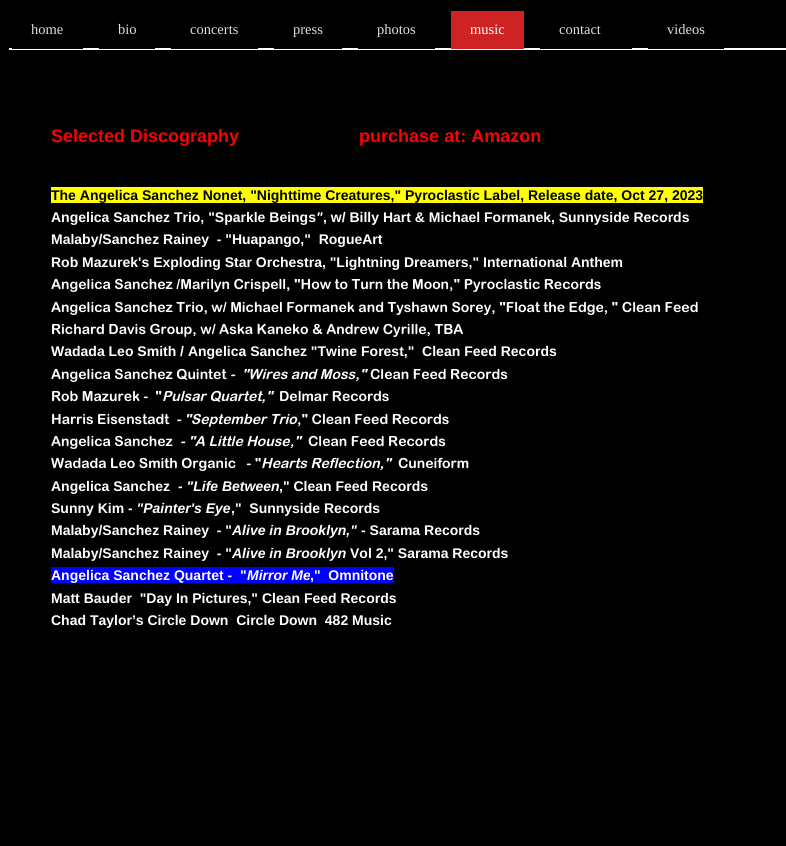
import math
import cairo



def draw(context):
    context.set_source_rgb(0, 0, 0)
    context.paint()
    context.set_source_rgb(1, 1, 1)
    context.rectangle(9, 48, 777, 2)
    context.fill()
    context.set_source_rgb(0, 0, 0)
    context.rectangle(12, 48, 71, 1)
    context.fill()
    context.rectangle(99, 48, 56, 1)
    context.fill()
    context.rectangle(171, 48, 87, 1)
    context.fill()
    context.rectangle(274, 48, 68, 1)
    context.fill()
    context.rectangle(358, 48, 77, 1)
    context.fill()
    context.set_source_rgb(207 / 255, 35 / 255, 35 / 255)
    context.rectangle(451, 11, 73, 38)
    context.fill()
    context.set_source_rgb(0, 0, 0)
    context.rectangle(540, 48, 92, 1)
    context.fill()
    context.rectangle(648, 48, 76, 1)
    context.fill()
    context.set_source_rgb(1, 1, 0)
    context.rectangle(51, 187, 652, 16)
    context.fill()
    context.set_source_rgb(0, 0, 1)
    context.rectangle(51, 567, 259, 16)
    context.fill()
    context.select_font_face("Liberation Serif")
    context.set_font_size(14.5)
    context.set_source_rgb(222 / 255, 222 / 255, 222 / 255)
    context.move_to(31, 34)
    context.show_text("home")
    context.move_to(118, 34)
    context.show_text("bio")
    context.move_to(190, 34)
    context.show_text("concerts")
    context.move_to(293, 34)
    context.show_text("press")
    context.move_to(377, 34)
    context.show_text("photos")
    context.set_source_rgb(1, 1, 1)
    context.move_to(470, 34)
    context.show_text("music")
    context.set_source_rgb(222 / 255, 222 / 255, 222 / 255)
    context.move_to(559, 34)
    context.show_text("contact")
    context.move_to(667, 34)
    context.show_text("videos")
    context.select_font_face("Liberation Sans", cairo.FontSlant.NORMAL, cairo.FontWeight.BOLD)
    context.set_font_size(18)
    context.set_source_rgb(1, 0, 0)
    context.move_to(51, 142)
    context.show_text("Selected Discography                        purchase at: Amazon")
    context.set_font_size(14)
    context.set_source_rgb(0, 0, 0)
    context.move_to(51, 200)
    context.show_text("The Angelica Sanchez Nonet, \"Nighttime Creatures,\" Pyroclastic Label, Release date, Oct 27, 2023")
    context.set_source_rgb(1, 1, 1)
    context.move_to(51, 222)
    context.show_text("Angelica Sanchez Trio, \"Sparkle Beings")
    context.select_font_face("Liberation Sans", cairo.FontSlant.ITALIC, cairo.FontWeight.BOLD)
    context.move_to(316, 222)
    context.show_text("\"")
    context.select_font_face("Liberation Sans", cairo.FontSlant.NORMAL, cairo.FontWeight.BOLD)
    context.move_to(323, 222)
    context.show_text(", w/ Billy Hart & Michael Formanek, Sunnyside Records")
    context.move_to(51, 244)
    context.show_text("Malaby/Sanchez Rainey  - \"Huapango,\"  RogueArt")
    context.move_to(51, 267)
    context.show_text("Rob Mazurek's Exploding Star Orchestra, \"Lightning Dreamers,\" International Anthem")
    context.select_font_face("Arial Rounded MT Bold", cairo.FontSlant.NORMAL, cairo.FontWeight.BOLD)
    context.move_to(51, 289)
    context.show_text("Angelica Sanchez /Marilyn Crispell, \"How to Turn the Moon,\" Pyroclastic Records")
    context.move_to(51, 312)
    context.show_text("Angelica Sanchez Trio, w/ Michael Formanek and Tyshawn Sorey, \"Float the Edge, \" Clean Feed")
    context.move_to(51, 334)
    context.show_text("Richard Davis Group, w/ Aska Kaneko & Andrew Cyrille, TBA")
    context.select_font_face("Liberation Sans", cairo.FontSlant.NORMAL, cairo.FontWeight.BOLD)
    context.move_to(51, 356)
    context.show_text("Wadada Leo Smith / Angelica Sanchez \"Twine Forest,\"  Clean Feed Records")
    context.select_font_face("Arial Rounded MT Bold", cairo.FontSlant.NORMAL, cairo.FontWeight.BOLD)
    context.move_to(51, 379)
    context.show_text("Angelica Sanchez Quintet")
    context.select_font_face("Arial Rounded MT Bold", cairo.FontSlant.ITALIC, cairo.FontWeight.BOLD)
    context.move_to(230, 379)
    context.show_text("-  \"Wires and Moss,\"")
    context.select_font_face("Arial Rounded MT Bold", cairo.FontSlant.NORMAL, cairo.FontWeight.BOLD)
    context.move_to(370, 379)
    context.show_text("Clean Feed Records")
    context.move_to(51, 401)
    context.show_text("Rob Mazurek -  \"")
    context.select_font_face("Arial Rounded MT Bold", cairo.FontSlant.ITALIC, cairo.FontWeight.BOLD)
    context.move_to(162, 401)
    context.show_text("Pulsar Quartet,\"")
    context.select_font_face("Arial Rounded MT Bold", cairo.FontSlant.NORMAL, cairo.FontWeight.BOLD)
    context.move_to(279, 401)
    context.show_text("Delmar Records")
    context.move_to(51, 424)
    context.show_text("Harris Eisenstadt")
    context.select_font_face("Arial Rounded MT Bold", cairo.FontSlant.ITALIC, cairo.FontWeight.BOLD)
    context.move_to(176, 424)
    context.show_text("- \"September Trio")
    context.select_font_face("Arial Rounded MT Bold", cairo.FontSlant.NORMAL, cairo.FontWeight.BOLD)
    context.move_to(297, 424)
    context.show_text(",\" Clean Feed Records")
    context.move_to(51, 446)
    context.show_text("Angelica Sanchez")
    context.select_font_face("Arial Rounded MT Bold", cairo.FontSlant.ITALIC, cairo.FontWeight.BOLD)
    context.move_to(180, 446)
    context.show_text("- \"A Little House,\"")
    context.select_font_face("Arial Rounded MT Bold", cairo.FontSlant.NORMAL, cairo.FontWeight.BOLD)
    context.move_to(308, 446)
    context.show_text("Clean Feed Records")
    context.move_to(51, 468)
    context.show_text("Wadada Leo Smith Organic   - \"")
    context.select_font_face("Arial Rounded MT Bold", cairo.FontSlant.ITALIC, cairo.FontWeight.BOLD)
    context.move_to(261, 468)
    context.show_text("Hearts Reflection,\"")
    context.select_font_face("Arial Rounded MT Bold", cairo.FontSlant.NORMAL, cairo.FontWeight.BOLD)
    context.move_to(398, 468)
    context.show_text("Cuneiform")
    context.select_font_face("Liberation Sans", cairo.FontSlant.NORMAL, cairo.FontWeight.BOLD)
    context.move_to(51, 491)
    context.show_text("Angelica Sanchez")
    context.select_font_face("Liberation Sans", cairo.FontSlant.ITALIC, cairo.FontWeight.BOLD)
    context.move_to(178, 491)
    context.show_text("- \"Life Between")
    context.select_font_face("Liberation Sans", cairo.FontSlant.NORMAL, cairo.FontWeight.BOLD)
    context.move_to(279, 491)
    context.show_text(",\" Clean Feed Records")
    context.move_to(51, 513)
    context.show_text("Sunny Kim")
    context.select_font_face("Liberation Sans", cairo.FontSlant.ITALIC, cairo.FontWeight.BOLD)
    context.move_to(128, 513)
    context.show_text("- \"Painter's Eye")
    context.select_font_face("Liberation Sans", cairo.FontSlant.NORMAL, cairo.FontWeight.BOLD)
    context.move_to(231, 513)
    context.show_text(",\"  Sunnyside Records")
    context.move_to(51, 535)
    context.show_text("Malaby/Sanchez Rainey  - \"")
    context.select_font_face("Liberation Sans", cairo.FontSlant.ITALIC, cairo.FontWeight.BOLD)
    context.move_to(232, 535)
    context.show_text("Alive in Brooklyn,\"")
    context.select_font_face("Liberation Sans", cairo.FontSlant.NORMAL, cairo.FontWeight.BOLD)
    context.move_to(361, 535)
    context.show_text("- Sarama Records")
    context.move_to(51, 558)
    context.show_text("Malaby/Sanchez Rainey  - \"")
    context.select_font_face("Liberation Sans", cairo.FontSlant.ITALIC, cairo.FontWeight.BOLD)
    context.move_to(232, 558)
    context.show_text("Alive in Brooklyn")
    context.select_font_face("Liberation Sans", cairo.FontSlant.NORMAL, cairo.FontWeight.BOLD)
    context.move_to(350, 558)
    context.show_text("Vol 2,\" Sarama Records")
    context.move_to(51, 580)
    context.show_text("Angelica Sanchez Quartet -  \"")
    context.select_font_face("Liberation Sans", cairo.FontSlant.ITALIC, cairo.FontWeight.BOLD)
    context.move_to(247, 580)
    context.show_text("Mirror Me")
    context.set_source_rgb(0, 0, 1)
    context.rectangle(310, 567, 84, 16)
    context.fill()
    context.select_font_face("Liberation Sans", cairo.FontSlant.NORMAL, cairo.FontWeight.BOLD)
    context.set_source_rgb(1, 1, 1)
    context.move_to(310, 580)
    context.show_text(",\"  Omnitone")
    context.move_to(51, 603)
    context.show_text("Matt Bauder  \"Day In Pictures,\" Clean Feed Records")
    context.move_to(51, 625)
    context.show_text("Chad Taylor’s Circle Down  Circle Down  482 Music")


surface = cairo.ImageSurface(cairo.Format.RGB24, 786, 846)
context = cairo.Context(surface)
options = cairo.FontOptions()
options.set_hint_metrics(cairo.HintMetrics.OFF)
options.set_hint_style(cairo.HintStyle.NONE)
context.set_font_options(options)
context.set_miter_limit(4)
draw(context)
surface.write_to_png("out.png")
